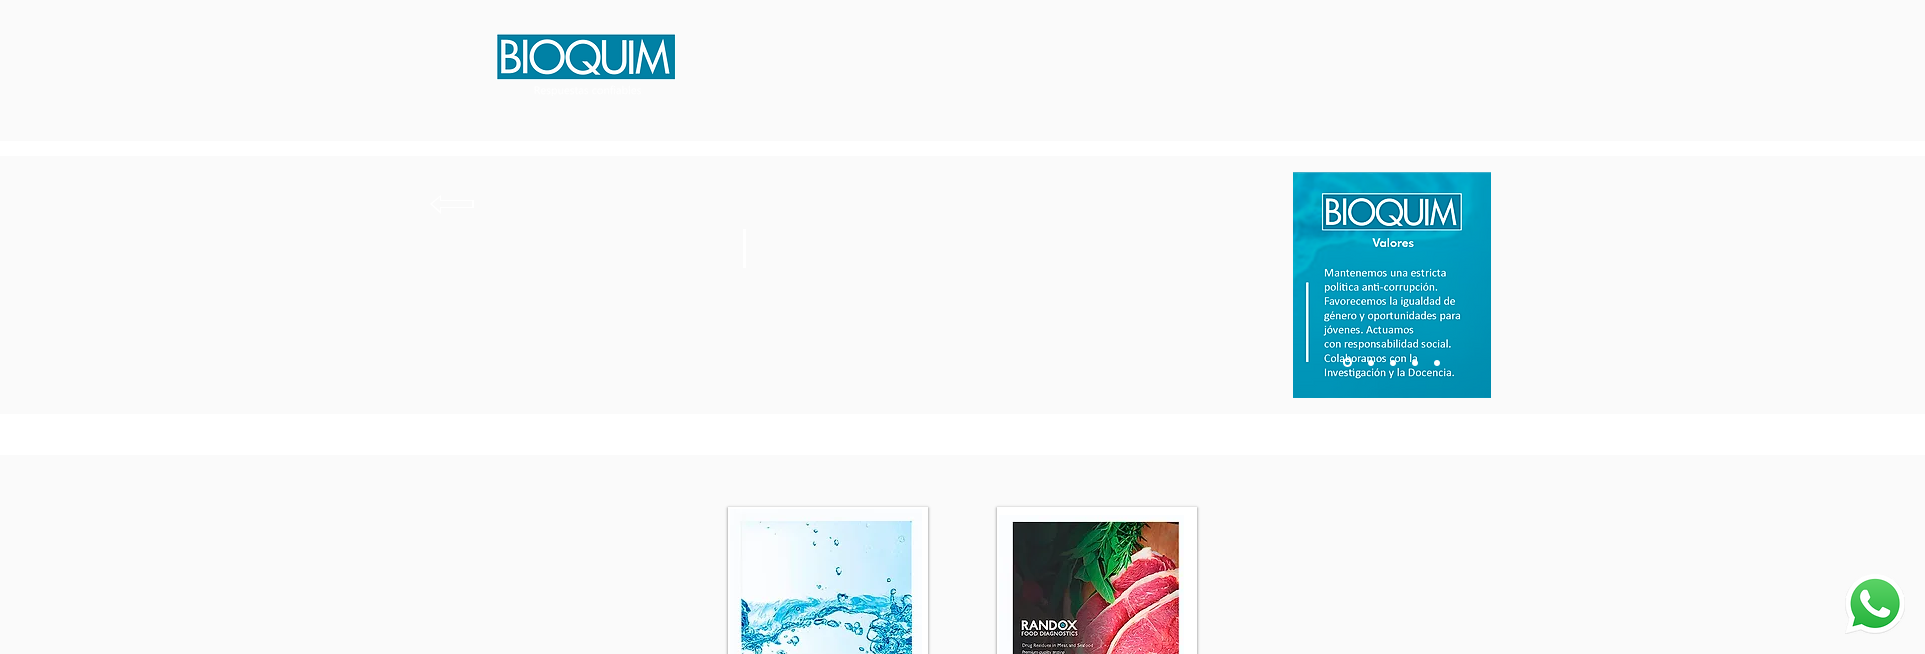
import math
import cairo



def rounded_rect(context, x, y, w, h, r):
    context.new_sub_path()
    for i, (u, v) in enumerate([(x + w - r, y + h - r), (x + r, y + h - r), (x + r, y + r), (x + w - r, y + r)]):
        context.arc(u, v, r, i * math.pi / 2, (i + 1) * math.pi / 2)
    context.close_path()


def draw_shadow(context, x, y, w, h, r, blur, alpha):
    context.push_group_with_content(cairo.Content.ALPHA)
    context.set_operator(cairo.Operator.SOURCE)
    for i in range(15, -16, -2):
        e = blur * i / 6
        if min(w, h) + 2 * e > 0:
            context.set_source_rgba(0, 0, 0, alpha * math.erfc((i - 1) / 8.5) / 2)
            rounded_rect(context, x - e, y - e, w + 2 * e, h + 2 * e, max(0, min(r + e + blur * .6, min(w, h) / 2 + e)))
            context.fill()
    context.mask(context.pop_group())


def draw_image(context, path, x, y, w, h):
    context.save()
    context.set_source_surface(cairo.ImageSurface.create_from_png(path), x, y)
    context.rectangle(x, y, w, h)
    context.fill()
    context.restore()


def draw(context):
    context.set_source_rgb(1, 1, 1)
    context.paint()
    context.set_source_rgb(250 / 255, 250 / 255, 250 / 255)
    context.rectangle(0, 0, 1925, 141)
    context.fill()
    draw_image(context, "images/1.png", 496, 34, 180, 62)
    context.rectangle(0, 156, 1925, 258)
    context.fill()
    context.set_source_rgb(1, 1, 1)
    context.new_path()
    context.move_to(431, 203)
    context.line_to(430, 204)
    context.line_to(441, 214)
    context.line_to(441, 208)
    context.line_to(474, 208)
    context.line_to(474, 200)
    context.line_to(441, 200)
    context.line_to(441, 195)
    context.close_path()
    context.move_to(440, 201)
    context.line_to(472, 201)
    context.line_to(472, 207)
    context.line_to(440, 207)
    context.line_to(440, 211)
    context.line_to(432, 204)
    context.line_to(440, 197)
    context.close_path()
    context.fill()
    draw_image(context, "images/2.png", 1293, 172, 198, 226)
    context.arc(1347.5, 362.5, 3.5, 0, 2 * math.pi)
    context.stroke()
    context.arc(1371, 363, 3, 0, 2 * math.pi)
    context.fill()
    context.arc(1393, 363, 3, 0, 2 * math.pi)
    context.fill()
    context.arc(1415, 363, 3, 0, 2 * math.pi)
    context.fill()
    context.arc(1437, 363, 3, 0, 2 * math.pi)
    context.fill()
    context.rectangle(743, 229, 3, 39)
    context.fill()
    context.set_source_rgb(250 / 255, 250 / 255, 250 / 255)
    context.rectangle(0, 455, 1925, 199)
    context.fill()
    context.set_source_rgb(0, 0, 0)
    draw_shadow(context, 728, 508, 200, 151, 0, 1.5, 0.5)
    context.set_source_rgb(1, 1, 1)
    context.rectangle(728, 507, 200, 147)
    context.fill()
    draw_image(context, "images/3.png", 730, 509, 192, 145)
    context.set_source_rgb(0, 0, 0)
    draw_shadow(context, 997, 508, 200, 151, 0, 1.5, 0.5)
    context.set_source_rgb(1, 1, 1)
    context.rectangle(997, 507, 200, 147)
    context.fill()
    draw_image(context, "images/4.png", 999, 515, 185, 139)
    draw_image(context, "images/5.png", 1845, 574, 60, 60)
    draw_image(context, "images/6.png", 1845, 589, 60, 45)


surface = cairo.ImageSurface(cairo.Format.RGB24, 1925, 654)
context = cairo.Context(surface)
options = cairo.FontOptions()
options.set_hint_metrics(cairo.HintMetrics.OFF)
options.set_hint_style(cairo.HintStyle.NONE)
context.set_font_options(options)
context.set_miter_limit(4)
draw(context)
surface.write_to_png("out.png")
